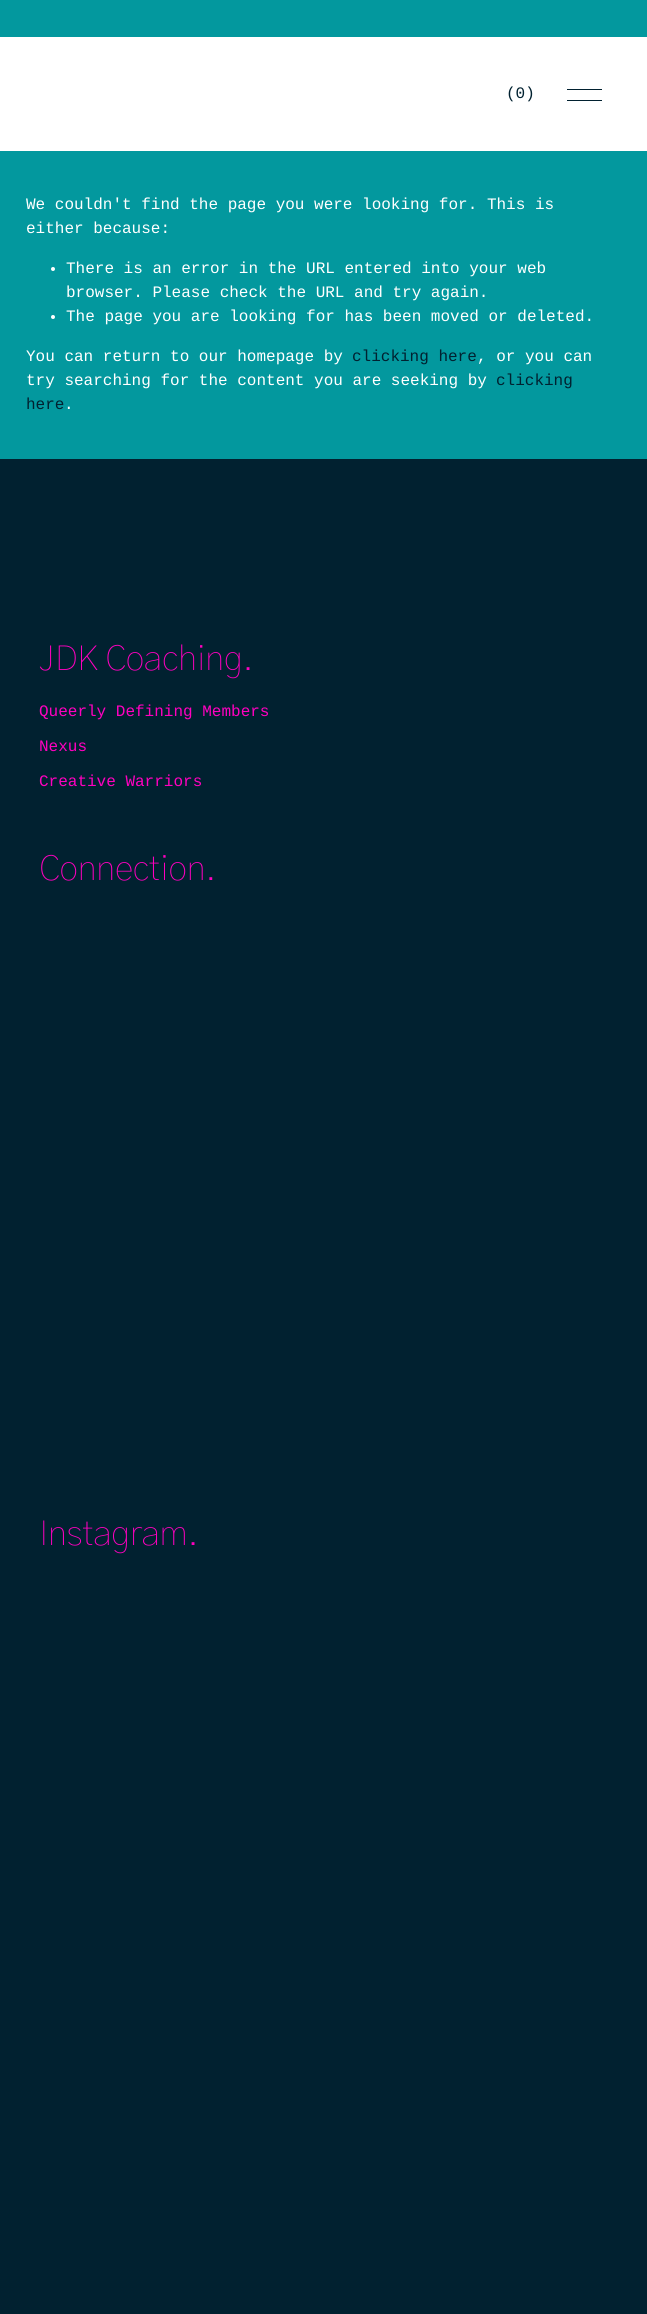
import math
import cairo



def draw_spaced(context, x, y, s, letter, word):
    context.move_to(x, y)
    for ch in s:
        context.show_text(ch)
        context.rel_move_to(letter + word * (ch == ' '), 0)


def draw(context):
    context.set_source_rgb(3 / 255, 152 / 255, 158 / 255)
    context.paint()
    context.set_source_rgb(1, 1, 1)
    context.rectangle(0, 37, 647, 114)
    context.fill()
    context.set_source_rgb(1 / 255, 33 / 255, 48 / 255)
    context.rectangle(567, 89, 35, 1)
    context.fill()
    context.rectangle(567, 100, 35, 1)
    context.fill()
    context.set_source_rgb(1, 1, 1)
    context.arc(53, 269, 2, 0, 2 * math.pi)
    context.fill()
    context.arc(53, 317, 2, 0, 2 * math.pi)
    context.fill()
    context.set_source_rgb(1 / 255, 33 / 255, 48 / 255)
    context.rectangle(0, 459, 647, 1855)
    context.fill()
    context.select_font_face("Liberation Mono")
    context.set_font_size(16)
    context.move_to(506, 98)
    context.show_text("(0)")
    context.set_source_rgb(1, 1, 1)
    context.move_to(26, 209)
    context.show_text("We couldn't find the page you were looking for. This is")
    context.move_to(26, 233)
    context.show_text("either because:")
    context.move_to(66, 273)
    context.show_text("There is an error in the URL entered into your web")
    context.move_to(66, 297)
    context.show_text("browser. Please check the URL and try again.")
    context.move_to(66, 321)
    context.show_text("The page you are looking for has been moved or deleted.")
    context.move_to(26, 361)
    context.show_text("You can return to our homepage by")
    context.set_source_rgb(1 / 255, 33 / 255, 48 / 255)
    context.move_to(352, 361)
    context.show_text("clicking here")
    context.set_source_rgb(1, 1, 1)
    context.move_to(477, 361)
    context.show_text(", or you can")
    context.move_to(26, 385)
    context.show_text("try searching for the content you are seeking by")
    context.set_source_rgb(1 / 255, 33 / 255, 48 / 255)
    context.move_to(496, 385)
    context.show_text("clicking")
    context.move_to(26, 409)
    context.show_text("here")
    context.set_source_rgb(1, 1, 1)
    context.move_to(64, 409)
    context.show_text(".")
    context.select_font_face("Gothic A1 Thin")
    context.set_font_size(35.5)
    context.set_source_rgb(1, 0, 191 / 255)
    draw_spaced(context, 39, 670, "JDK Coaching.", -0.75, 0)
    context.select_font_face("Liberation Mono")
    context.set_font_size(16)
    context.move_to(39, 716)
    context.show_text("Queerly Defining Members")
    context.move_to(39, 751)
    context.show_text("Nexus")
    context.move_to(39, 786)
    context.show_text("Creative Warriors")
    context.select_font_face("Gothic A1 Thin")
    context.set_font_size(35.5)
    draw_spaced(context, 39, 880, "Connection.", -0.75, 0)
    draw_spaced(context, 39, 1545, "Instagram.", -0.75, 0)


surface = cairo.ImageSurface(cairo.Format.RGB24, 647, 2314)
context = cairo.Context(surface)
options = cairo.FontOptions()
options.set_hint_metrics(cairo.HintMetrics.OFF)
options.set_hint_style(cairo.HintStyle.NONE)
context.set_font_options(options)
context.set_miter_limit(4)
draw(context)
surface.write_to_png("out.png")
